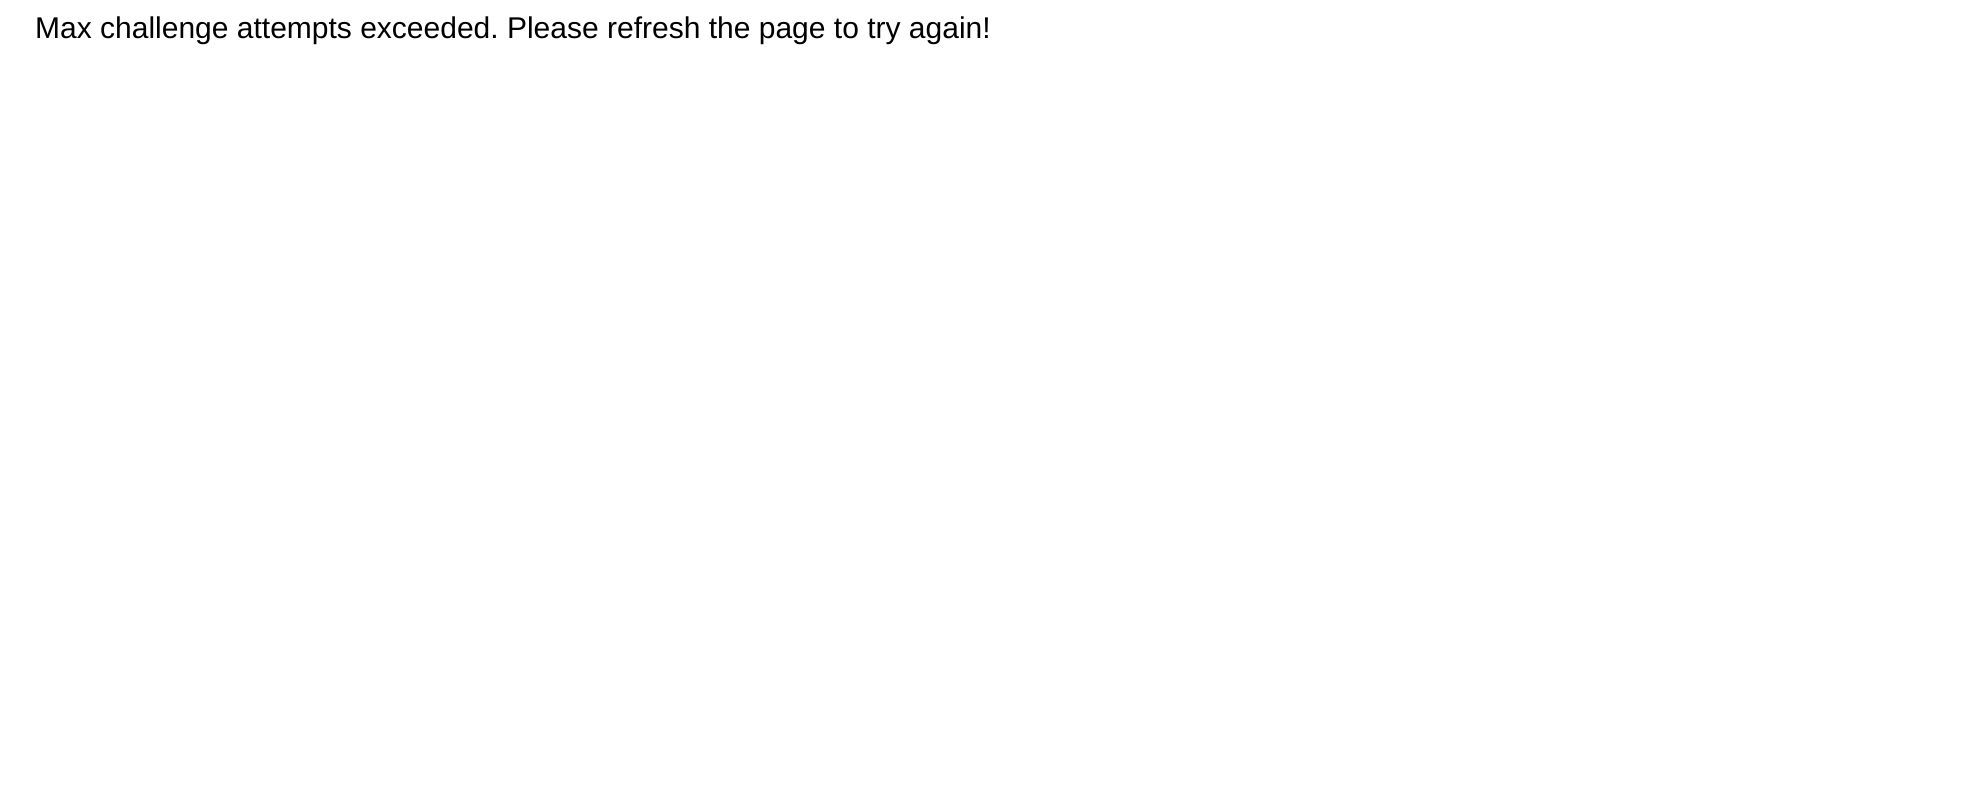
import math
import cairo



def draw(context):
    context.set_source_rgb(1, 1, 1)
    context.paint()
    context.select_font_face("Liberation Sans")
    context.set_font_size(30)
    context.set_source_rgb(0, 0, 0)
    context.move_to(35, 38)
    context.show_text("Max challenge attempts exceeded. Please refresh the page to try again!")


surface = cairo.ImageSurface(cairo.Format.RGB24, 1981, 794)
context = cairo.Context(surface)
options = cairo.FontOptions()
options.set_hint_metrics(cairo.HintMetrics.OFF)
options.set_hint_style(cairo.HintStyle.NONE)
context.set_font_options(options)
context.set_miter_limit(4)
draw(context)
surface.write_to_png("out.png")
